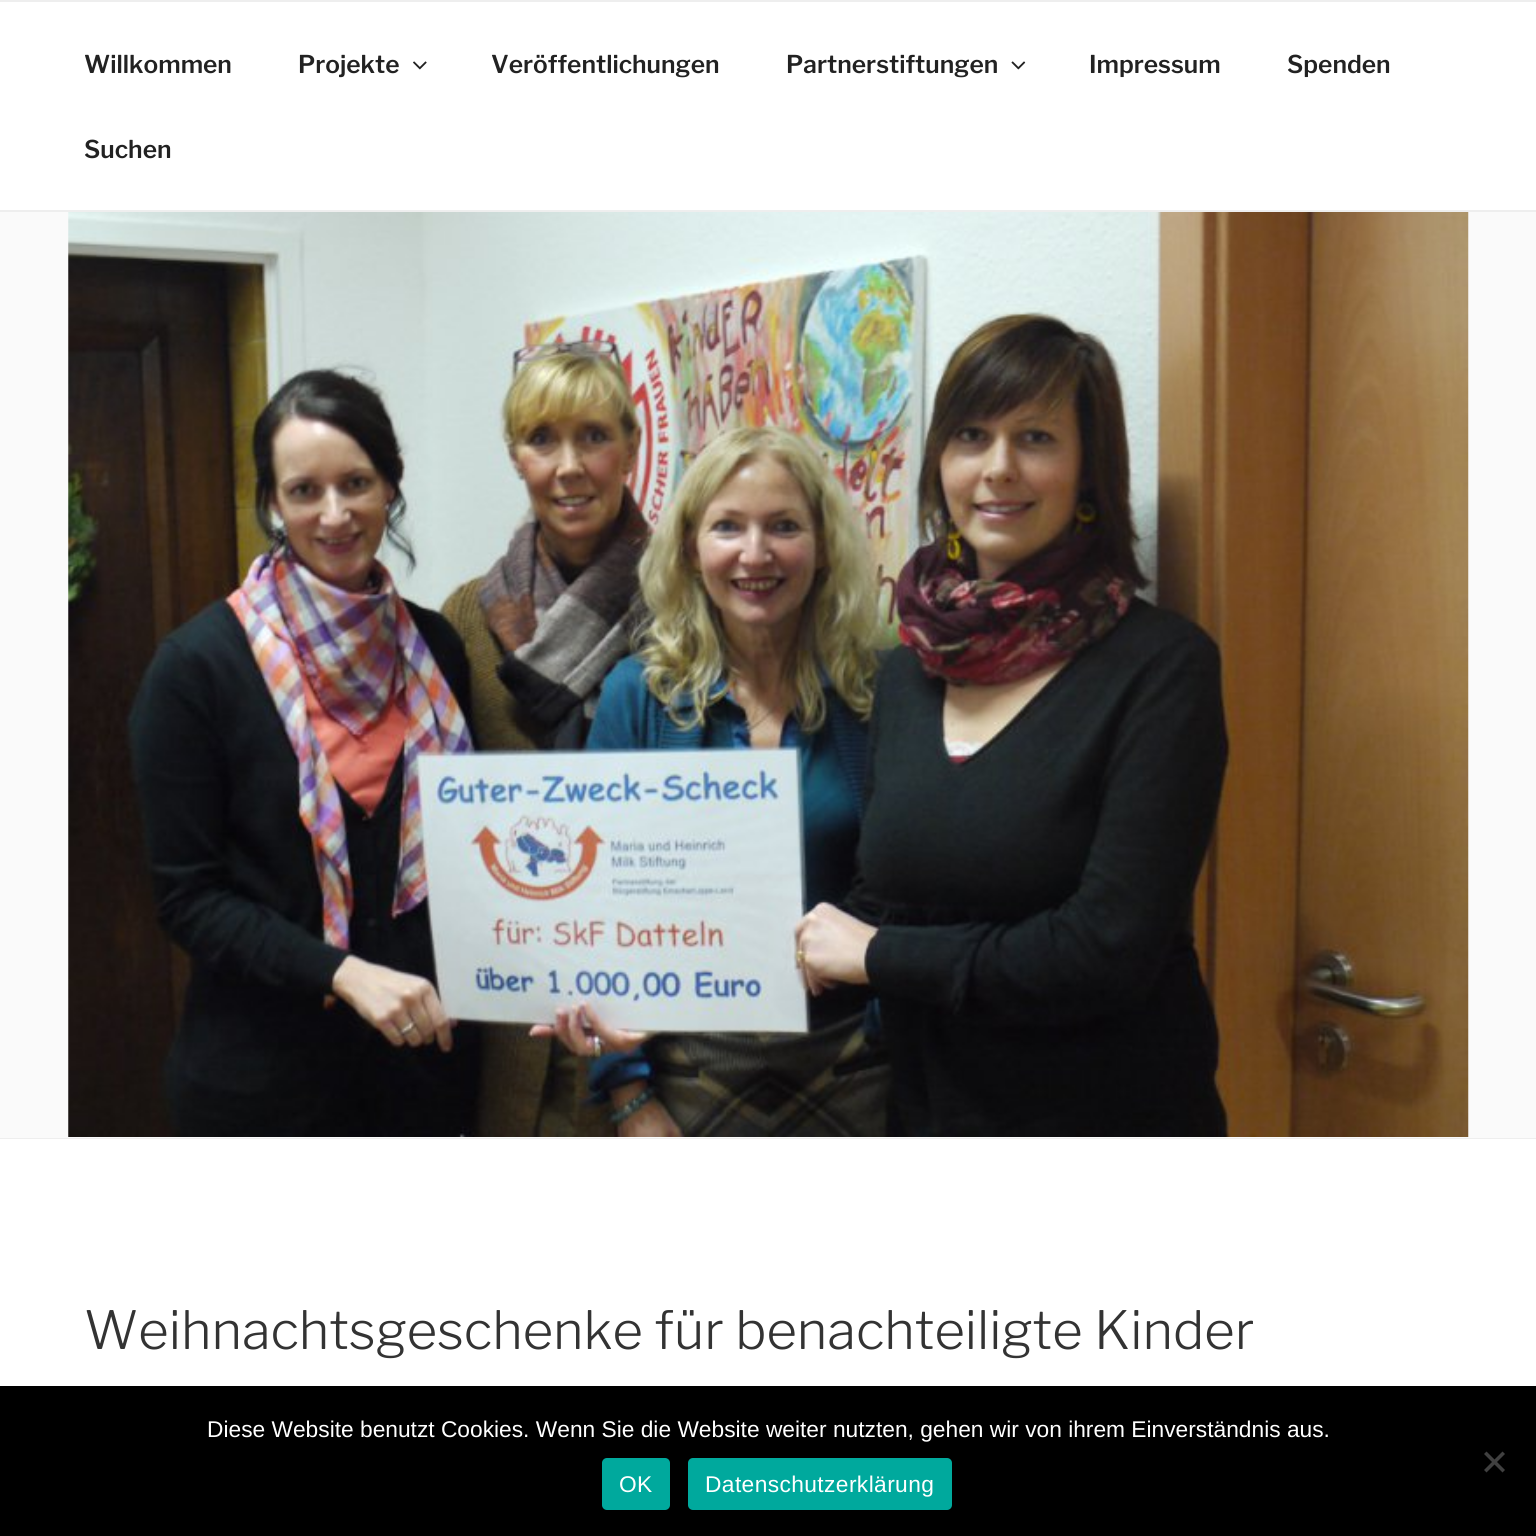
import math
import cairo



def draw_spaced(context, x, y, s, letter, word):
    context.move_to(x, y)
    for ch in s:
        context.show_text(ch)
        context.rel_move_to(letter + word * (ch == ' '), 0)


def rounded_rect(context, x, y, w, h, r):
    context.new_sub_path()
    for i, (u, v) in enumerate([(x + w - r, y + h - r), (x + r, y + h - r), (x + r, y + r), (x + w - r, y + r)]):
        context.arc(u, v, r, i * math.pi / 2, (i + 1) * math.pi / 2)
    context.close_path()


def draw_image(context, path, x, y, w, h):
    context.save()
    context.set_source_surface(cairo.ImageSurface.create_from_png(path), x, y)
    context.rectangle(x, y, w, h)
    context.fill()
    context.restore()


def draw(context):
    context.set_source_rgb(250 / 255, 250 / 255, 250 / 255)
    context.paint()
    context.set_source_rgb(1, 1, 1)
    context.rectangle(0, 2, 1536, 208)
    context.fill()
    context.set_source_rgb(238 / 255, 238 / 255, 238 / 255)
    context.rectangle(0, 0, 1536, 2)
    context.fill()
    context.rectangle(0, 210, 1536, 2)
    context.fill()
    draw_image(context, "images/1.png", 413, 61, 14, 9)
    draw_image(context, "images/2.png", 1011, 61, 15, 9)
    context.rectangle(0, 1138, 1536, 1)
    context.fill()
    draw_image(context, "images/3.png", 68, 212, 1401, 925)
    context.set_source_rgb(1, 1, 1)
    context.rectangle(0, 1139, 1536, 247)
    context.fill()
    context.set_source_rgb(0, 0, 0)
    context.rectangle(0, 1386, 1536, 150)
    context.fill()
    context.set_source_rgb(64 / 255, 64 / 255, 64 / 255)
    context.new_path()
    context.move_to(1502.5, 1451.5)
    context.line_to(1505, 1454)
    context.line_to(1486.5, 1472.5)
    context.line_to(1484, 1470)
    context.close_path()
    context.fill()
    context.new_path()
    context.move_to(1484, 1454)
    context.line_to(1486.5, 1451.5)
    context.line_to(1505, 1470)
    context.line_to(1502.5, 1472.5)
    context.close_path()
    context.fill()
    context.set_source_rgb(0, 169 / 255, 157 / 255)
    rounded_rect(context, 602, 1458, 68, 52, 5)
    context.fill()
    rounded_rect(context, 688, 1458, 264, 52, 5)
    context.fill()
    context.select_font_face("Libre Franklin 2 Thin")
    context.set_font_size(24.5)
    context.set_source_rgb(34 / 255, 34 / 255, 34 / 255)
    context.move_to(84, 73)
    context.show_text("Willkommen")
    context.move_to(298, 73)
    context.show_text("Projekte")
    context.move_to(491, 73)
    context.show_text("Veröffentlichungen")
    context.move_to(786, 73)
    context.show_text("Partnerstiftungen")
    context.move_to(1089, 73)
    context.show_text("Impressum")
    context.move_to(1287, 73)
    context.show_text("Spenden")
    context.move_to(84, 158)
    context.show_text("Suchen")
    context.select_font_face("Libre Franklin Thin")
    context.set_font_size(52.5)
    context.set_source_rgb(51 / 255, 51 / 255, 51 / 255)
    context.move_to(84, 1349)
    context.show_text("Weihnachtsgeschenke für benachteiligte Kinder")
    context.select_font_face("Liberation Sans")
    context.set_font_size(22.75)
    context.set_source_rgb(1, 1, 1)
    context.move_to(207, 1437)
    context.show_text("Diese Website benutzt Cookies. Wenn Sie die Website weiter nutzten, gehen wir von ihrem Einverständnis aus.")
    draw_spaced(context, 619, 1492, "OK", 0.4, 0)
    draw_spaced(context, 705, 1492, "Datenschutzerklärung", 0.4, 0)


surface = cairo.ImageSurface(cairo.Format.RGB24, 1536, 1536)
context = cairo.Context(surface)
options = cairo.FontOptions()
options.set_hint_metrics(cairo.HintMetrics.OFF)
options.set_hint_style(cairo.HintStyle.NONE)
context.set_font_options(options)
context.set_miter_limit(4)
draw(context)
surface.write_to_png("out.png")
